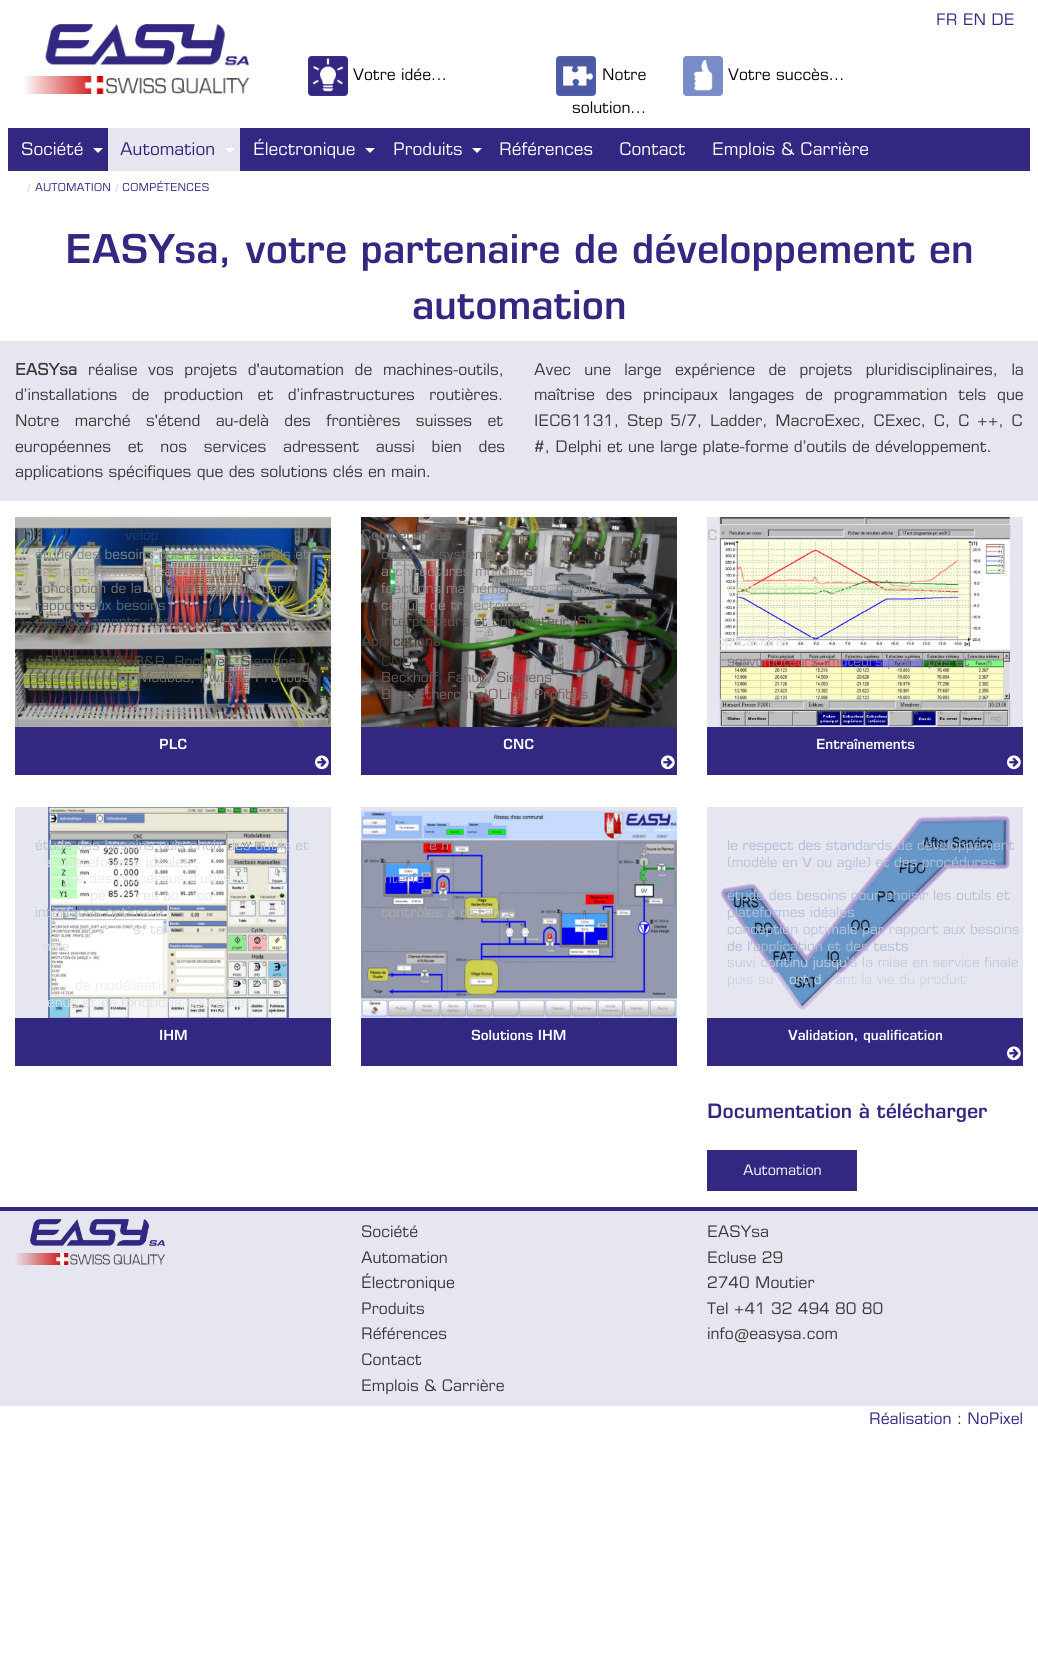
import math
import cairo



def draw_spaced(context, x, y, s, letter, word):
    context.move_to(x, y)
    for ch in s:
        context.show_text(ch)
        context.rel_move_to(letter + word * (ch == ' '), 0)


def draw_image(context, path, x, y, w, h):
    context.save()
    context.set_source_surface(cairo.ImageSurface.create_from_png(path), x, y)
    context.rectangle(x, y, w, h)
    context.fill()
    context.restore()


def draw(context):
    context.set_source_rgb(1, 1, 1)
    context.paint()
    draw_image(context, "images/1.png", 24, 24, 225, 70)
    draw_image(context, "images/2.png", 308, 56, 40, 40)
    draw_image(context, "images/3.png", 556, 56, 40, 40)
    draw_image(context, "images/4.png", 683, 56, 40, 40)
    context.set_source_rgb(50 / 255, 40 / 255, 130 / 255)
    context.rectangle(8, 128, 1022, 43)
    context.fill()
    context.set_source_rgb(254 / 255, 254 / 255, 254 / 255)
    context.new_path()
    context.move_to(93, 148)
    context.line_to(103, 148)
    context.line_to(98, 153)
    context.close_path()
    context.fill()
    context.set_source_rgb(230 / 255, 230 / 255, 240 / 255)
    context.rectangle(108, 128, 132, 43)
    context.fill()
    context.set_source_rgb(254 / 255, 254 / 255, 254 / 255)
    context.new_path()
    context.move_to(225, 148)
    context.line_to(235, 148)
    context.line_to(230, 153)
    context.close_path()
    context.fill()
    context.new_path()
    context.move_to(365, 148)
    context.line_to(375, 148)
    context.line_to(370, 153)
    context.close_path()
    context.fill()
    context.new_path()
    context.move_to(472, 148)
    context.line_to(482, 148)
    context.line_to(477, 153)
    context.close_path()
    context.fill()
    context.set_source_rgb(230 / 255, 230 / 255, 240 / 255)
    context.rectangle(0, 341, 1038, 160)
    context.fill()
    draw_image(context, "images/5.png", 15, 517, 316, 210)
    context.set_source_rgb(50 / 255, 40 / 255, 130 / 255)
    context.rectangle(15, 727, 316, 48)
    context.fill()
    draw_image(context, "images/6.png", 315, 755, 14, 15)
    draw_image(context, "images/7.png", 361, 517, 316, 210)
    context.rectangle(361, 727, 316, 48)
    context.fill()
    draw_image(context, "images/6.png", 661, 755, 14, 15)
    draw_image(context, "images/8.png", 707, 517, 316, 210)
    context.rectangle(707, 727, 316, 48)
    context.fill()
    draw_image(context, "images/6.png", 1007, 755, 14, 15)
    draw_image(context, "images/9.png", 15, 807, 316, 211)
    context.set_source_rgb(230 / 255, 230 / 255, 240 / 255)
    context.new_path()
    context.move_to(22, 1017)
    context.curve_to(23, 1017, 24, 1018, 24, 1019)
    context.line_to(24, 1018)
    context.line_to(20, 1018)
    context.line_to(20, 1019)
    context.curve_to(20, 1018, 21, 1017, 22, 1017)
    context.close_path()
    context.fill()
    context.set_source_rgb(50 / 255, 40 / 255, 130 / 255)
    context.rectangle(15, 1018, 316, 48)
    context.fill()
    draw_image(context, "images/10.png", 361, 807, 316, 211)
    context.rectangle(361, 1018, 316, 48)
    context.fill()
    draw_image(context, "images/11.png", 707, 807, 316, 211)
    context.rectangle(707, 1018, 316, 48)
    context.fill()
    draw_image(context, "images/6.png", 1007, 1046, 14, 15)
    context.rectangle(707, 1150, 150, 41)
    context.fill()
    context.set_source_rgb(230 / 255, 230 / 255, 240 / 255)
    context.rectangle(0, 1211, 1038, 195)
    context.fill()
    context.set_source_rgb(50 / 255, 40 / 255, 130 / 255)
    context.rectangle(0, 1207, 1038, 4)
    context.fill()
    draw_image(context, "images/12.png", 15, 1219, 150, 46)
    context.select_font_face("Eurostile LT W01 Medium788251 Medium")
    context.set_font_size(16)
    context.move_to(936, 25)
    context.show_text("FR EN DE")
    context.set_source_rgb(10 / 255, 10 / 255, 10 / 255)
    context.move_to(353, 80)
    context.show_text("Votre idée...")
    context.move_to(602, 80)
    context.show_text("Notre")
    context.move_to(572, 113)
    context.show_text("solution...")
    context.move_to(728, 80)
    context.show_text("Votre succès...")
    context.set_font_size(17.5)
    context.set_source_rgb(1, 1, 1)
    context.move_to(21, 155)
    context.show_text("Société")
    context.set_source_rgb(50 / 255, 40 / 255, 130 / 255)
    context.move_to(120, 155)
    context.show_text("Automation")
    context.set_source_rgb(1, 1, 1)
    context.move_to(253, 155)
    context.show_text("Électronique")
    context.move_to(393, 155)
    context.show_text("Produits")
    context.move_to(499, 155)
    context.show_text("Références")
    context.move_to(619, 155)
    context.show_text("Contact")
    context.move_to(712, 155)
    context.show_text("Emplois & Carrière")
    context.set_font_size(11)
    context.set_source_rgb(202 / 255, 202 / 255, 202 / 255)
    context.move_to(27, 192)
    context.show_text("/")
    context.set_source_rgb(50 / 255, 40 / 255, 130 / 255)
    context.move_to(35, 191)
    context.show_text("AUTOMATION")
    context.set_source_rgb(202 / 255, 202 / 255, 202 / 255)
    context.move_to(115, 192)
    context.show_text("/")
    context.set_source_rgb(50 / 255, 40 / 255, 130 / 255)
    context.move_to(122, 191)
    context.show_text("COMPÉTENCES")
    context.select_font_face("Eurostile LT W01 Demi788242 SemiBold")
    context.set_font_size(40)
    context.move_to(65, 263)
    context.show_text("EASYsa, votre partenaire de développement en")
    context.move_to(412, 319)
    context.show_text("automation")
    context.select_font_face("Eurostile LT W01 Medium788251", cairo.FontSlant.NORMAL, cairo.FontWeight.BOLD)
    context.set_font_size(16)
    context.set_source_rgb(58 / 255, 58 / 255, 57 / 255)
    context.move_to(15, 375)
    context.show_text("EASYsa")
    context.select_font_face("Eurostile LT W01 Medium788251 Medium")
    draw_spaced(context, 88, 375, "réalise vos projets d'automation de machines-outils,", 0, 5.25)
    draw_spaced(context, 15, 400, "d’installations de production et d’infrastructures routières.", 0, 9)
    draw_spaced(context, 15, 426, "Notre marché s'étend au-delà des frontières suisses et", 0, 10)
    draw_spaced(context, 15, 452, "européennes et nos services adressent aussi bien des", 0, 11.5)
    context.move_to(15, 477)
    context.show_text("applications spécifiques que des solutions clés en main.")
    draw_spaced(context, 534, 375, "Avec une large expérience de projets pluridisciplinaires, la", 0, 8)
    draw_spaced(context, 534, 400, "maîtrise des principaux langages de programmation tels que", 0, 5.5)
    draw_spaced(context, 534, 426, "IEC61131, Step 5/7, Ladder, MacroExec, CExec, C, C ++, C", 0, 2.25)
    context.move_to(534, 452)
    context.show_text("#, Delphi et une large plate-forme d’outils de développement.")
    context.select_font_face("Eurostile LT W01 Medium788251", cairo.FontSlant.NORMAL, cairo.FontWeight.BOLD)
    context.set_font_size(14)
    context.set_source_rgb(19 / 255, 57 / 255, 116 / 255)
    context.move_to(24, 540)
    context.show_text("r")
    context.move_to(125, 540)
    context.show_text("velop")
    context.select_font_face("Eurostile LT W01 Medium788251 Medium")
    context.set_source_rgb(124 / 255, 139 / 255, 132 / 255)
    context.move_to(35, 559)
    context.show_text("étude des besoins puis choix des outils et")
    context.set_source_rgb(168 / 255, 157 / 255, 150 / 255)
    context.move_to(35, 576)
    context.show_text("des plateformes idéales")
    context.set_source_rgb(126 / 255, 116 / 255, 116 / 255)
    context.move_to(35, 593)
    context.show_text("conception de la solution optimale par")
    context.set_source_rgb(95 / 255, 106 / 255, 118 / 255)
    context.move_to(35, 610)
    context.show_text("rapport aux besoins")
    context.set_source_rgb(79 / 255, 79 / 255, 92 / 255)
    context.move_to(35, 626)
    context.show_text("développements, tests, mise en service")
    context.set_source_rgb(73 / 255, 79 / 255, 67 / 255)
    context.move_to(35, 666)
    context.show_text("API: Beckhoff, B&R, Rockwell, Siemens")
    context.set_source_rgb(115 / 255, 115 / 255, 92 / 255)
    context.move_to(35, 682)
    context.show_text("Bus: Ethercat, Modbus, PwLink, Profibus")
    context.set_source_rgb(156 / 255, 153 / 255, 153 / 255)
    context.move_to(35, 716)
    context.show_text("IO: selon spécifications")
    context.select_font_face("Eurostile LT W01 Demi788242 SemiBold")
    context.set_source_rgb(1, 1, 1)
    context.move_to(159, 749)
    context.show_text("PLC")
    context.select_font_face("Eurostile LT W01 Medium788251", cairo.FontSlant.NORMAL, cairo.FontWeight.BOLD)
    context.set_source_rgb(109 / 255, 101 / 255, 99 / 255)
    context.move_to(361, 540)
    context.show_text("Compétences")
    context.select_font_face("Eurostile LT W01 Medium788251 Medium")
    context.set_source_rgb(103 / 255, 101 / 255, 101 / 255)
    context.move_to(381, 559)
    context.show_text("choix du système")
    context.set_source_rgb(142 / 255, 135 / 255, 133 / 255)
    context.move_to(381, 576)
    context.show_text("architectures multiples")
    context.set_source_rgb(132 / 255, 130 / 255, 133 / 255)
    context.move_to(381, 593)
    context.show_text("fonctions mathématiques, géométriques")
    context.set_source_rgb(142 / 255, 135 / 255, 133 / 255)
    context.move_to(381, 610)
    context.show_text("calculs de trajectoires")
    context.set_source_rgb(91 / 255, 93 / 255, 78 / 255)
    context.move_to(381, 626)
    context.show_text("interpréteurs et compilateur ISO")
    context.select_font_face("Eurostile LT W01 Medium788251", cairo.FontSlant.NORMAL, cairo.FontWeight.BOLD)
    context.set_source_rgb(75 / 255, 66 / 255, 61 / 255)
    context.move_to(361, 646)
    context.show_text("Applications")
    context.select_font_face("Eurostile LT W01 Medium788251 Medium")
    context.set_source_rgb(58 / 255, 58 / 255, 57 / 255)
    context.move_to(381, 666)
    context.show_text("CNC")
    context.set_source_rgb(107 / 255, 89 / 255, 90 / 255)
    context.move_to(381, 682)
    context.show_text("Beckhoff, Fanuc, Siemens")
    context.set_source_rgb(125 / 255, 96 / 255, 97 / 255)
    context.move_to(381, 699)
    context.show_text("Bus: Ethercat, IOLink, Profibus")
    context.select_font_face("Eurostile LT W01 Demi788242 SemiBold")
    context.set_source_rgb(1, 1, 1)
    context.move_to(503, 749)
    context.show_text("CNC")
    context.select_font_face("Eurostile LT W01 Medium788251", cairo.FontSlant.NORMAL, cairo.FontWeight.BOLD)
    context.set_source_rgb(188 / 255, 188 / 255, 189 / 255)
    context.move_to(707, 540)
    context.show_text("C")
    context.select_font_face("Eurostile LT W01 Medium788251 Medium")
    context.set_source_rgb(240 / 255, 236 / 255, 214 / 255)
    context.move_to(1000, 576)
    context.show_text("e")
    context.set_source_rgb(225 / 255, 232 / 255, 195 / 255)
    context.move_to(727, 593)
    context.show_text("modélisation et commande à priori")
    context.select_font_face("Eurostile LT W01 Medium788251", cairo.FontSlant.NORMAL, cairo.FontWeight.BOLD)
    context.set_source_rgb(228 / 255, 228 / 255, 226 / 255)
    context.move_to(717, 646)
    context.show_text("pplications")
    context.select_font_face("Eurostile LT W01 Medium788251 Medium")
    context.set_source_rgb(136 / 255, 114 / 255, 138 / 255)
    context.move_to(727, 666)
    context.show_text("servomoteurs, moteurs pas-à-pas et")
    context.select_font_face("Eurostile LT W01 Demi788242 SemiBold")
    context.set_source_rgb(1, 1, 1)
    context.move_to(816, 749)
    context.show_text("Entraînements")
    context.select_font_face("Eurostile LT W01 Medium788251 Medium")
    context.set_source_rgb(188 / 255, 197 / 255, 210 / 255)
    context.move_to(35, 850)
    context.show_text("étude des besoins puis choix des outils et")
    context.set_source_rgb(228 / 255, 228 / 255, 226 / 255)
    context.move_to(43, 867)
    context.show_text("es plateformes idéales")
    context.set_source_rgb(228 / 255, 235 / 255, 230 / 255)
    context.move_to(62, 883)
    context.show_text("yse des processus d’utilisat")
    context.set_source_rgb(228 / 255, 228 / 255, 226 / 255)
    context.move_to(90, 900)
    context.show_text("pé")
    context.move_to(137, 900)
    context.show_text("res po")
    context.move_to(197, 900)
    context.show_text("co")
    context.set_source_rgb(188 / 255, 197 / 255, 210 / 255)
    context.move_to(35, 917)
    context.show_text("interfaces optimaux")
    context.set_source_rgb(216 / 255, 216 / 255, 216 / 255)
    context.move_to(133, 934)
    context.show_text("s, te")
    context.set_source_rgb(220 / 255, 221 / 255, 229 / 255)
    context.move_to(43, 951)
    context.show_text("nale")
    context.set_source_rgb(235 / 255, 235 / 255, 236 / 255)
    context.move_to(75, 990)
    context.show_text("de modélisati")
    context.move_to(214, 990)
    context.show_text(", li")
    context.set_source_rgb(220 / 255, 227 / 255, 231 / 255)
    context.move_to(47, 1007)
    context.show_text("enus et de fonctions courantes")
    context.set_source_rgb(220 / 255, 221 / 255, 229 / 255)
    context.move_to(249, 1023)
    context.show_text("’")
    context.select_font_face("Eurostile LT W01 Demi788242 SemiBold")
    context.set_source_rgb(1, 1, 1)
    context.move_to(159, 1040)
    context.show_text("IHM")
    context.select_font_face("Eurostile LT W01 Medium788251 Medium")
    context.set_source_rgb(157 / 255, 145 / 255, 162 / 255)
    context.move_to(429, 850)
    context.show_text("e m")
    context.set_source_rgb(133 / 255, 142 / 255, 181 / 255)
    context.move_to(384, 883)
    context.show_text("nterfa")
    context.move_to(643, 883)
    context.show_text("i")
    context.set_source_rgb(171 / 255, 174 / 255, 171 / 255)
    context.move_to(381, 917)
    context.show_text("contrôles à distance")
    context.set_source_rgb(145 / 255, 149 / 255, 173 / 255)
    context.move_to(435, 956)
    context.show_text(",")
    context.select_font_face("Eurostile LT W01 Demi788242 SemiBold")
    context.set_source_rgb(1, 1, 1)
    context.move_to(471, 1040)
    context.show_text("Solutions IHM")
    context.select_font_face("Eurostile LT W01 Medium788251 Medium")
    context.set_source_rgb(174 / 255, 189 / 255, 213 / 255)
    context.move_to(727, 850)
    context.show_text("le respect des standards de développement")
    context.set_source_rgb(179 / 255, 192 / 255, 219 / 255)
    context.move_to(727, 867)
    context.show_text("(modèle en V ou agile) et des procédures")
    context.move_to(727, 900)
    context.show_text("étude des besoins pour choisir les outils et")
    context.move_to(727, 917)
    context.show_text("plateformes idéales")
    context.set_source_rgb(186 / 255, 197 / 255, 219 / 255)
    context.move_to(727, 934)
    context.show_text("conception optimale par rapport aux besoins")
    context.set_source_rgb(174 / 255, 189 / 255, 213 / 255)
    context.move_to(727, 951)
    context.show_text("de l'application et des tests")
    context.set_source_rgb(192 / 255, 203 / 255, 224 / 255)
    context.move_to(727, 967)
    context.show_text("suivi continu jusqu'à la mise en service finale")
    context.set_source_rgb(204 / 255, 210 / 255, 227 / 255)
    context.move_to(727, 984)
    context.show_text("puis su")
    context.move_to(789, 984)
    context.show_text("ort d")
    context.move_to(835, 984)
    context.show_text("ant la vie du produit")
    context.select_font_face("Eurostile LT W01 Demi788242 SemiBold")
    context.set_source_rgb(1, 1, 1)
    context.move_to(788, 1040)
    context.show_text("Validation, qualification")
    context.set_font_size(20)
    context.set_source_rgb(50 / 255, 40 / 255, 130 / 255)
    context.move_to(707, 1118)
    context.show_text("Documentation à télécharger")
    context.select_font_face("Eurostile LT W01 Medium788251 Medium")
    context.set_font_size(14.5)
    context.set_source_rgb(1, 1, 1)
    context.move_to(743, 1175)
    context.show_text("Automation")
    context.set_font_size(16)
    context.set_source_rgb(58 / 255, 58 / 255, 57 / 255)
    context.move_to(361, 1237)
    context.show_text("Société")
    context.move_to(361, 1263)
    context.show_text("Automation")
    context.move_to(361, 1288)
    context.show_text("Électronique")
    context.move_to(361, 1314)
    context.show_text("Produits")
    context.move_to(361, 1339)
    context.show_text("Références")
    context.move_to(361, 1365)
    context.show_text("Contact")
    context.move_to(361, 1391)
    context.show_text("Emplois & Carrière")
    context.move_to(707, 1237)
    context.show_text("EASYsa")
    context.move_to(707, 1263)
    context.show_text("Ecluse 29")
    context.move_to(707, 1288)
    context.show_text("2740 Moutier")
    context.move_to(707, 1314)
    context.show_text("Tel +41 32 494 80 80")
    context.move_to(707, 1339)
    context.show_text("info@easysa.com")
    context.set_source_rgb(50 / 255, 40 / 255, 130 / 255)
    context.move_to(869, 1424)
    context.show_text("Réalisation : NoPixel")


surface = cairo.ImageSurface(cairo.Format.RGB24, 1038, 1677)
context = cairo.Context(surface)
options = cairo.FontOptions()
options.set_hint_metrics(cairo.HintMetrics.OFF)
options.set_hint_style(cairo.HintStyle.NONE)
context.set_font_options(options)
context.set_miter_limit(4)
draw(context)
surface.write_to_png("out.png")
